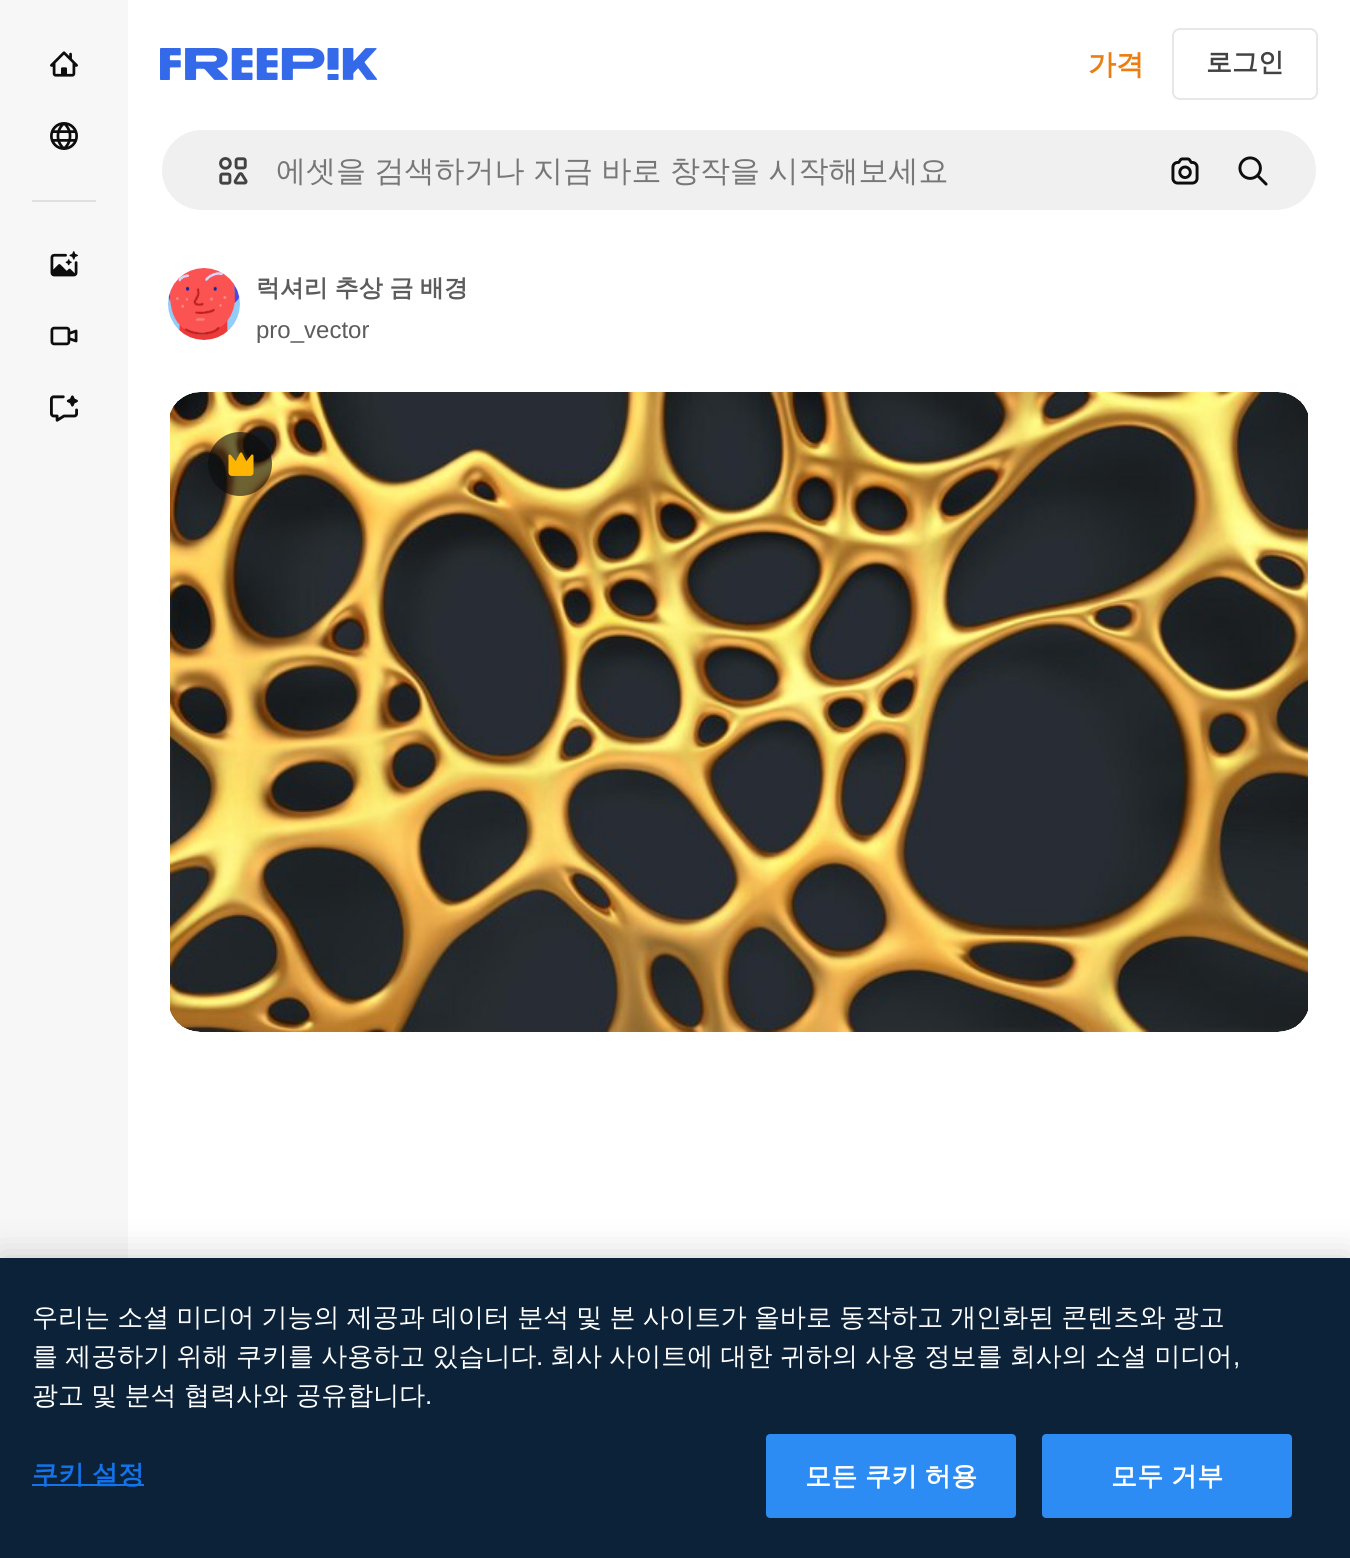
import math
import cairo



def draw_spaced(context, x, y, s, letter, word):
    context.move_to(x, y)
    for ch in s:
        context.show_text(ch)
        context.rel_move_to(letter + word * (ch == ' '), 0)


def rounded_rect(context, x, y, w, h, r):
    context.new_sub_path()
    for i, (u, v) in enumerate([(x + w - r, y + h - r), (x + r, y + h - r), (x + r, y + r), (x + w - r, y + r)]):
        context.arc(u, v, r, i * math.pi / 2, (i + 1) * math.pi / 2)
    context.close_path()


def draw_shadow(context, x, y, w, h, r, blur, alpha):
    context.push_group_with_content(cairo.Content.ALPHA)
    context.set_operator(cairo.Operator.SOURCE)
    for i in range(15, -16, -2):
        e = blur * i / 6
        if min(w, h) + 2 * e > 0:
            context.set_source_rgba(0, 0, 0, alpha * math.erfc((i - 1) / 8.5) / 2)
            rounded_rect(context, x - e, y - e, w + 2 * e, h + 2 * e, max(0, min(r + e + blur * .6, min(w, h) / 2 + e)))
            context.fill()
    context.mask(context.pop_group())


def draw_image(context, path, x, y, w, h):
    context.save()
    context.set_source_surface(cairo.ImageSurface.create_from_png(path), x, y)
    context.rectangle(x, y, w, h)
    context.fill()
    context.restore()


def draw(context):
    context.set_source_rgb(1, 1, 1)
    context.paint()
    context.set_source_rgb(247 / 255, 247 / 255, 247 / 255)
    context.rectangle(0, 0, 128, 1258)
    context.fill()
    draw_image(context, "images/1.png", 50, 51, 28, 26)
    draw_image(context, "images/2.png", 50, 122, 28, 28)
    context.set_source_rgb(224 / 255, 224 / 255, 224 / 255)
    context.rectangle(32, 200, 64, 2)
    context.fill()
    draw_image(context, "images/3.png", 50, 251, 28, 26)
    draw_image(context, "images/4.png", 50, 326, 28, 20)
    draw_image(context, "images/5.png", 50, 395, 28, 27)
    draw_image(context, "images/6.png", 160, 48, 218, 32)
    rounded_rect(context, 1173, 29, 144, 70, 7)
    context.set_source_rgb(231 / 255, 231 / 255, 231 / 255)
    context.stroke()
    context.set_source_rgb(240 / 255, 240 / 255, 240 / 255)
    rounded_rect(context, 161, 129, 1156, 82, 41)
    context.fill_preserve()
    context.set_source_rgb(1, 1, 1)
    context.stroke()
    draw_image(context, "images/7.png", 219, 157, 29, 28)
    draw_image(context, "images/8.png", 1171, 157, 28, 28)
    draw_image(context, "images/9.png", 1238, 156, 30, 30)
    draw_image(context, "images/10.png", 168, 268, 72, 72)
    draw_image(context, "images/11.png", 170, 392, 1138, 640)
    context.set_source_rgba(13 / 255, 13 / 255, 13 / 255, 0.6)
    context.arc(240, 464, 32, 0, 2 * math.pi)
    context.fill()
    draw_image(context, "images/12.png", 228, 452, 26, 24)
    context.set_source_rgb(0, 0, 0)
    draw_shadow(context, 0, 1258, 1350, 300, 0, 18, 0.2)
    context.set_source_rgb(11 / 255, 34 / 255, 57 / 255)
    context.rectangle(0, 1258, 1350, 300)
    context.fill()
    context.set_source_rgb(18 / 255, 115 / 255, 235 / 255)
    context.rectangle(32, 1484, 112, 2)
    context.fill()
    context.set_source_rgb(44 / 255, 140 / 255, 244 / 255)
    rounded_rect(context, 767, 1435, 248, 82, 3)
    context.fill_preserve()
    context.stroke()
    rounded_rect(context, 1043, 1435, 248, 82, 3)
    context.fill_preserve()
    context.stroke()
    context.select_font_face("WenQuanYi Zen Hei", cairo.FontSlant.NORMAL, cairo.FontWeight.BOLD)
    context.set_font_size(28)
    context.set_source_rgb(234 / 255, 126 / 255, 17 / 255)
    context.move_to(1088, 74)
    context.show_text("가격")
    context.set_font_size(26)
    context.set_source_rgb(66 / 255, 66 / 255, 66 / 255)
    context.move_to(1206, 71)
    context.show_text("로그인")
    context.select_font_face("WenQuanYi Zen Hei Medium")
    context.set_font_size(30)
    context.set_source_rgb(119 / 255, 119 / 255, 119 / 255)
    draw_spaced(context, 276, 181, "에셋을 검색하거나 지금 바로 창작을 시작해보세요", 0, -0.5)
    context.select_font_face("WenQuanYi Zen Hei", cairo.FontSlant.NORMAL, cairo.FontWeight.BOLD)
    context.set_font_size(24)
    context.set_source_rgb(92 / 255, 92 / 255, 92 / 255)
    draw_spaced(context, 256, 296, "럭셔리 추상 금 배경", 0, -0.5)
    context.select_font_face("Liberation Sans")
    context.move_to(256, 338)
    context.show_text("pro_vector")
    context.select_font_face("WenQuanYi Zen Hei Medium")
    context.set_font_size(26)
    context.set_source_rgb(1, 1, 1)
    draw_spaced(context, 32, 1326, "우리는 소셜 미디어 기능의 제공과 데이터 분석 및 본 사이트가 올바로 동작하고 개인화된 콘텐츠와 광고", 0, -0.6)
    draw_spaced(context, 32, 1365, "를 제공하기 위해 쿠키를 사용하고 있습니다", 0, -0.5)
    context.select_font_face("Liberation Sans")
    context.move_to(536, 1365)
    context.show_text(".")
    context.select_font_face("WenQuanYi Zen Hei Medium")
    draw_spaced(context, 550, 1365, "회사 사이트에 대한 귀하의 사용 정보를 회사의 소셜 미디어", 0, -0.5)
    context.select_font_face("Liberation Sans")
    context.move_to(1233, 1365)
    context.show_text(",")
    context.select_font_face("WenQuanYi Zen Hei Medium")
    draw_spaced(context, 32, 1404, "광고 및 분석 협력사와 공유합니다", 0, -0.5)
    context.select_font_face("Liberation Sans")
    context.move_to(425, 1404)
    context.show_text(".")
    context.select_font_face("WenQuanYi Zen Hei", cairo.FontSlant.NORMAL, cairo.FontWeight.BOLD)
    context.set_source_rgb(18 / 255, 115 / 255, 235 / 255)
    draw_spaced(context, 32, 1483, "쿠키 설정", 0.25, -0.5)
    context.set_source_rgb(1, 1, 1)
    draw_spaced(context, 805, 1485, "모든 쿠키 허용", 0.25, -0.5)
    draw_spaced(context, 1111, 1485, "모두 거부", 0.25, -0.5)


surface = cairo.ImageSurface(cairo.Format.RGB24, 1350, 1558)
context = cairo.Context(surface)
options = cairo.FontOptions()
options.set_hint_metrics(cairo.HintMetrics.OFF)
options.set_hint_style(cairo.HintStyle.NONE)
context.set_font_options(options)
context.set_miter_limit(4)
draw(context)
surface.write_to_png("out.png")
